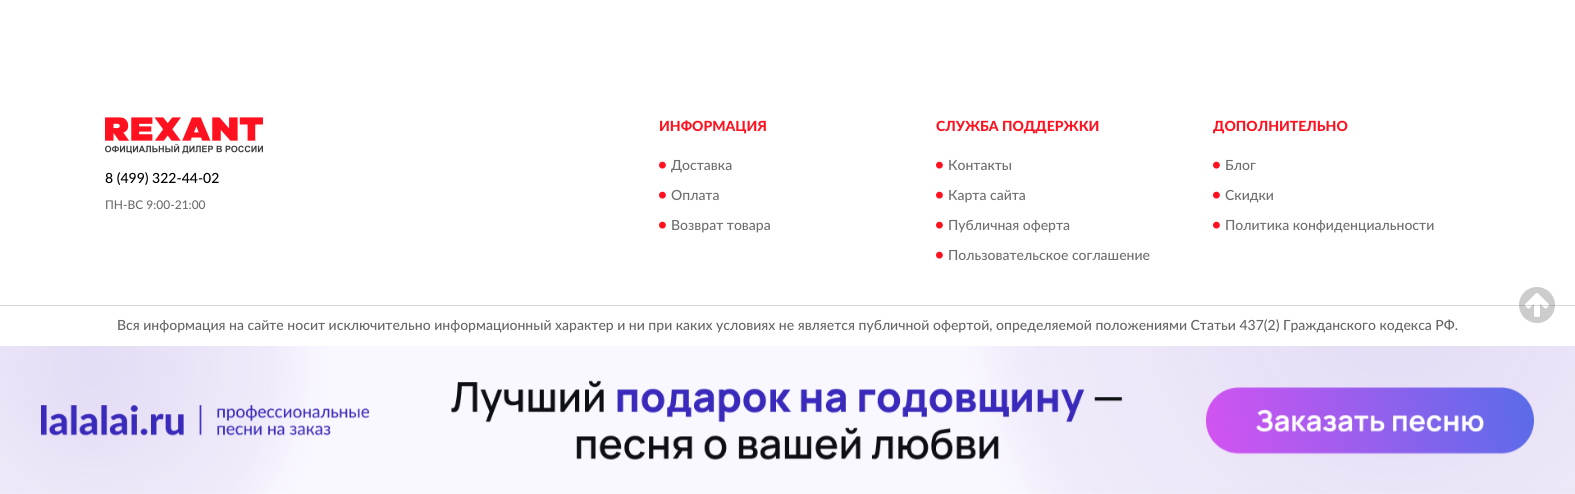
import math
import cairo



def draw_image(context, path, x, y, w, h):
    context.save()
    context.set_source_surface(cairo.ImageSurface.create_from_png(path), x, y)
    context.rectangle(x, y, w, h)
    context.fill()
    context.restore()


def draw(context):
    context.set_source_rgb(1, 1, 1)
    context.paint()
    draw_image(context, "images/1.png", 105, 117, 158, 37)
    draw_image(context, "images/2.png", 659, 161, 7, 8)
    draw_image(context, "images/2.png", 659, 191, 7, 8)
    draw_image(context, "images/2.png", 659, 221, 7, 8)
    draw_image(context, "images/2.png", 936, 161, 7, 8)
    draw_image(context, "images/2.png", 936, 191, 7, 8)
    draw_image(context, "images/2.png", 936, 221, 7, 8)
    draw_image(context, "images/2.png", 936, 251, 7, 8)
    draw_image(context, "images/2.png", 1213, 161, 7, 8)
    draw_image(context, "images/2.png", 1213, 191, 7, 8)
    draw_image(context, "images/2.png", 1213, 221, 7, 8)
    context.set_source_rgb(215 / 255, 216 / 255, 217 / 255)
    context.rectangle(0, 305, 1575, 1)
    context.fill()
    draw_image(context, "images/3.png", 1519, 287, 36, 36)
    draw_image(context, "images/4.png", 0, 346, 1575, 148)
    context.select_font_face("Lato Medium")
    context.set_font_size(14)
    context.set_source_rgb(0, 0, 0)
    context.move_to(105, 183)
    context.show_text("8 (499) 322-44-02")
    context.set_font_size(12)
    context.set_source_rgb(110 / 255, 110 / 255, 110 / 255)
    context.move_to(105, 209)
    context.show_text("ПН-ВС 9:00-21:00")
    context.select_font_face("Lato Black")
    context.set_font_size(14)
    context.set_source_rgb(1, 17 / 255, 31 / 255)
    context.move_to(659, 131)
    context.show_text("ИНФОРМАЦИЯ")
    context.select_font_face("Lato Medium")
    context.set_source_rgb(110 / 255, 110 / 255, 110 / 255)
    context.move_to(671, 170)
    context.show_text("Доставка")
    context.move_to(671, 200)
    context.show_text("Оплата")
    context.move_to(671, 230)
    context.show_text("Возврат товара")
    context.select_font_face("Lato Black")
    context.set_source_rgb(1, 17 / 255, 31 / 255)
    context.move_to(936, 131)
    context.show_text("СЛУЖБА ПОДДЕРЖКИ")
    context.select_font_face("Lato Medium")
    context.set_source_rgb(110 / 255, 110 / 255, 110 / 255)
    context.move_to(948, 170)
    context.show_text("Контакты")
    context.move_to(948, 200)
    context.show_text("Карта сайта")
    context.move_to(948, 230)
    context.show_text("Публичная оферта")
    context.move_to(948, 260)
    context.show_text("Пользовательское соглашение")
    context.select_font_face("Lato Black")
    context.set_source_rgb(1, 17 / 255, 31 / 255)
    context.move_to(1213, 131)
    context.show_text("ДОПОЛНИТЕЛЬНО")
    context.select_font_face("Lato Medium")
    context.set_source_rgb(110 / 255, 110 / 255, 110 / 255)
    context.move_to(1225, 170)
    context.show_text("Блог")
    context.move_to(1225, 200)
    context.show_text("Скидки")
    context.move_to(1225, 230)
    context.show_text("Политика конфиденциальности")
    context.set_source_rgb(102 / 255, 102 / 255, 102 / 255)
    context.move_to(117, 330)
    context.show_text("Вся информация на сайте носит исключительно информационный характер и ни при каких условиях не является публичной офертой, определяемой положениями Статьи 437(2) Гражданского кодекса РФ.")


surface = cairo.ImageSurface(cairo.Format.RGB24, 1575, 494)
context = cairo.Context(surface)
options = cairo.FontOptions()
options.set_hint_metrics(cairo.HintMetrics.OFF)
options.set_hint_style(cairo.HintStyle.NONE)
context.set_font_options(options)
context.set_miter_limit(4)
draw(context)
surface.write_to_png("out.png")
